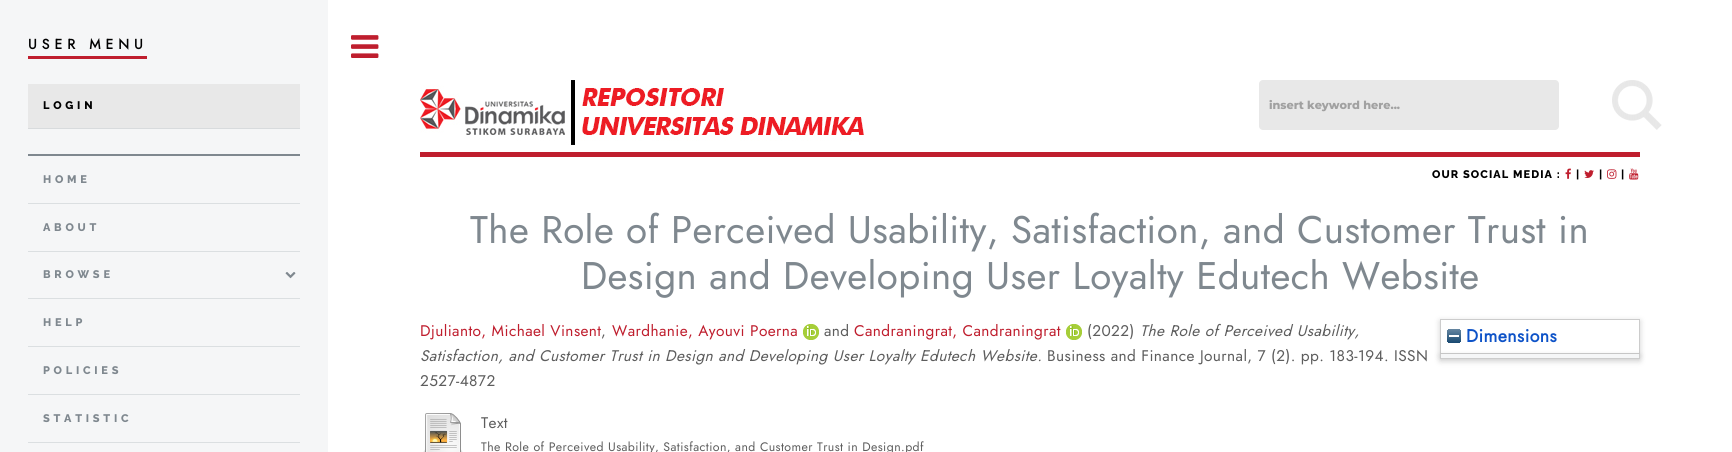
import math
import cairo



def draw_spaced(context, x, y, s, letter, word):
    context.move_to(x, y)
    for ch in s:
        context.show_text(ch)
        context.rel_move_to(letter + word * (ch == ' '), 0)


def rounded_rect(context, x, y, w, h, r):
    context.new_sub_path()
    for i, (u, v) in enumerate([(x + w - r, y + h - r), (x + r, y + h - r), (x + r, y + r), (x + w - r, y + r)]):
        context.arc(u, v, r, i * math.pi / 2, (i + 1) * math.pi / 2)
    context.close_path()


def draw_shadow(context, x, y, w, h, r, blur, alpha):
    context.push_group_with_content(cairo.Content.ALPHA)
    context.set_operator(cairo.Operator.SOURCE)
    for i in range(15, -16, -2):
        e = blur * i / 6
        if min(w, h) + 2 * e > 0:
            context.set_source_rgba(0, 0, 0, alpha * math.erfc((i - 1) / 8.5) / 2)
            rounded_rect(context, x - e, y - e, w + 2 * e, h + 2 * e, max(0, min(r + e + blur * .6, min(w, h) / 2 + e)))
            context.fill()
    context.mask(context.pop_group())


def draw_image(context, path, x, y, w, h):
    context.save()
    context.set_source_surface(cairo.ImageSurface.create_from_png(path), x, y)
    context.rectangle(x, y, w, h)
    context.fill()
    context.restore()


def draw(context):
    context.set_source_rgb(1, 1, 1)
    context.paint()
    context.set_source_rgb(245 / 255, 246 / 255, 247 / 255)
    context.rectangle(0, 0, 328, 452)
    context.fill()
    context.set_source_rgb(191 / 255, 30 / 255, 46 / 255)
    context.rectangle(28, 56, 119, 3)
    context.fill()
    context.set_source_rgb(232 / 255, 232 / 255, 232 / 255)
    context.rectangle(28, 84, 272, 44)
    context.fill()
    context.set_source_rgb(216 / 255, 219 / 255, 221 / 255)
    context.rectangle(28, 128, 272, 1)
    context.fill()
    context.set_source_rgb(127 / 255, 136 / 255, 143 / 255)
    context.rectangle(28, 154, 272, 2)
    context.fill()
    context.set_source_rgb(219 / 255, 223 / 255, 225 / 255)
    context.rectangle(28, 203, 272, 1)
    context.fill()
    context.rectangle(28, 251, 272, 1)
    context.fill()
    draw_image(context, "images/1.png", 285, 272, 11, 7)
    context.rectangle(28, 298, 272, 1)
    context.fill()
    context.rectangle(28, 346, 272, 1)
    context.fill()
    context.rectangle(28, 394, 272, 1)
    context.fill()
    context.rectangle(28, 442, 272, 1)
    context.fill()
    draw_image(context, "images/2.png", 351, 35, 28, 23)
    context.set_source_rgb(191 / 255, 30 / 255, 46 / 255)
    context.rectangle(420, 152, 1220, 5)
    context.fill()
    draw_image(context, "images/3.png", 420, 80, 444, 65)
    draw_image(context, "images/4.png", 1565, 168, 6, 11)
    draw_image(context, "images/5.png", 1584, 170, 10, 8)
    draw_image(context, "images/6.png", 1607, 169, 10, 10)
    draw_image(context, "images/7.png", 1629, 168, 10, 12)
    draw_image(context, "images/8.png", 803, 324, 16, 16)
    draw_image(context, "images/8.png", 1066, 324, 16, 16)
    draw_image(context, "images/9.png", 423, 413, 40, 39)
    context.save()
    context.set_fill_rule(cairo.FillRule.EVEN_ODD)
    context.new_path()
    context.move_to(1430, 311)
    context.line_to(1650, 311)
    context.line_to(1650, 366)
    context.line_to(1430, 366)
    context.close_path()
    context.move_to(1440, 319)
    context.line_to(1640, 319)
    context.line_to(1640, 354)
    context.line_to(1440, 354)
    context.close_path()
    context.clip()
    context.set_source_rgb(100 / 255, 100 / 255, 100 / 255)
    draw_shadow(context, 1440, 321, 200, 35, 0, 3, 0.3)
    context.restore()
    context.rectangle(1440.5, 319.5, 199, 34)
    context.set_source_rgb(204 / 255, 204 / 255, 204 / 255)
    context.set_line_width(1)
    context.stroke()
    draw_image(context, "images/10.png", 1447, 329, 14, 14)
    context.set_source_rgb(100 / 255, 100 / 255, 100 / 255)
    draw_shadow(context, 1440, 356, 200, 5, 0, 3, 0.3)
    context.set_source_rgb(245 / 255, 246 / 255, 247 / 255)
    context.rectangle(1440, 354, 200, 4)
    context.fill()
    context.set_source_rgb(204 / 255, 204 / 255, 204 / 255)
    context.rectangle(1639, 354, 1, 5)
    context.fill()
    context.rectangle(1440, 358, 200, 1)
    context.fill()
    context.rectangle(1440, 354, 1, 5)
    context.fill()
    context.set_source_rgb(232 / 255, 232 / 255, 232 / 255)
    rounded_rect(context, 1259, 80, 300, 50, 4)
    context.fill()
    draw_image(context, "images/11.png", 1612, 80, 50, 50)
    context.select_font_face("Jost", cairo.FontSlant.NORMAL, cairo.FontWeight.BOLD)
    context.set_font_size(14)
    context.set_source_rgb(0, 0, 0)
    draw_spaced(context, 28, 49, "USER MENU", 5, 0)
    context.select_font_face("Raleway ExtraBold")
    context.set_font_size(11)
    draw_spaced(context, 43, 109, "LOGIN", 3.75, 0)
    context.set_source_rgb(127 / 255, 136 / 255, 143 / 255)
    draw_spaced(context, 43, 183, "HOME", 3.75, 0)
    draw_spaced(context, 43, 231, "ABOUT", 3.75, 0)
    draw_spaced(context, 43, 278, "BROWSE", 3.75, 0)
    draw_spaced(context, 43, 326, "HELP", 3.75, 0)
    draw_spaced(context, 43, 374, "POLICIES", 3.75, 0)
    draw_spaced(context, 43, 422, "STATISTIC", 3.75, 0)
    context.set_source_rgb(0, 0, 0)
    draw_spaced(context, 1432, 178, "OUR SOCIAL MEDIA :", 1.1, 0)
    draw_spaced(context, 1576, 178, "|", 1.1, 0)
    draw_spaced(context, 1599, 178, "|", 1.1, 0)
    draw_spaced(context, 1621, 178, "|", 1.1, 0)
    context.select_font_face("Jost")
    context.set_font_size(38.5)
    context.set_source_rgb(127 / 255, 136 / 255, 143 / 255)
    draw_spaced(context, 470, 243, "The Role of Perceived Usability, Satisfaction, and Customer Trust in", 0.42, 0)
    draw_spaced(context, 581, 289, "Design and Developing User Loyalty Edutech Website", 0.42, 0)
    context.set_font_size(15.4)
    context.set_source_rgb(191 / 255, 30 / 255, 46 / 255)
    draw_spaced(context, 420, 336, "Djulianto, Michael Vinsent", 0.42, 0)
    context.set_source_rgb(93 / 255, 93 / 255, 93 / 255)
    draw_spaced(context, 601, 336, ",", 0.42, 0)
    context.set_source_rgb(191 / 255, 30 / 255, 46 / 255)
    draw_spaced(context, 612, 336, "Wardhanie, Ayouvi Poerna", 0.42, 0)
    context.set_source_rgb(93 / 255, 93 / 255, 93 / 255)
    draw_spaced(context, 824, 336, "and", 0.42, 0)
    context.set_source_rgb(191 / 255, 30 / 255, 46 / 255)
    draw_spaced(context, 854, 336, "Candraningrat, Candraningrat", 0.42, 0)
    context.set_source_rgb(93 / 255, 93 / 255, 93 / 255)
    draw_spaced(context, 1087, 336, "(2022)", 0.42, 0)
    context.select_font_face("Jost", cairo.FontSlant.ITALIC)
    draw_spaced(context, 1140, 336, "The Role of Perceived Usability,", 0.42, 0)
    draw_spaced(context, 420, 361, "Satisfaction, and Customer Trust in Design and Developing User Loyalty Edutech Website.", 0.42, 0)
    context.select_font_face("Jost")
    draw_spaced(context, 1047, 361, "Business and Finance Journal, 7 (2). pp. 183-194. ISSN", 0.42, 0)
    draw_spaced(context, 420, 386, "2527-4872", 0.42, 0)
    draw_spaced(context, 481, 428, "Text", 0.42, 0)
    context.set_font_size(12.3)
    draw_spaced(context, 481, 451, "The Role of Perceived Usability, Satisfaction, and Customer Trust in Design.pdf", 0.42, 0)
    context.select_font_face("Jost", cairo.FontSlant.NORMAL, cairo.FontWeight.BOLD)
    context.set_font_size(17.75)
    context.set_source_rgb(14 / 255, 83 / 255, 200 / 255)
    draw_spaced(context, 1466, 342, "Dimensions", 0.42, 0)
    context.select_font_face("Montserrat ExtraBold")
    context.set_font_size(11.25)
    context.set_source_rgb(161 / 255, 161 / 255, 161 / 255)
    context.move_to(1269, 109)
    context.show_text("insert keyword here...")


surface = cairo.ImageSurface(cairo.Format.RGB24, 1732, 452)
context = cairo.Context(surface)
options = cairo.FontOptions()
options.set_hint_metrics(cairo.HintMetrics.OFF)
options.set_hint_style(cairo.HintStyle.NONE)
context.set_font_options(options)
context.set_miter_limit(4)
draw(context)
surface.write_to_png("out.png")
